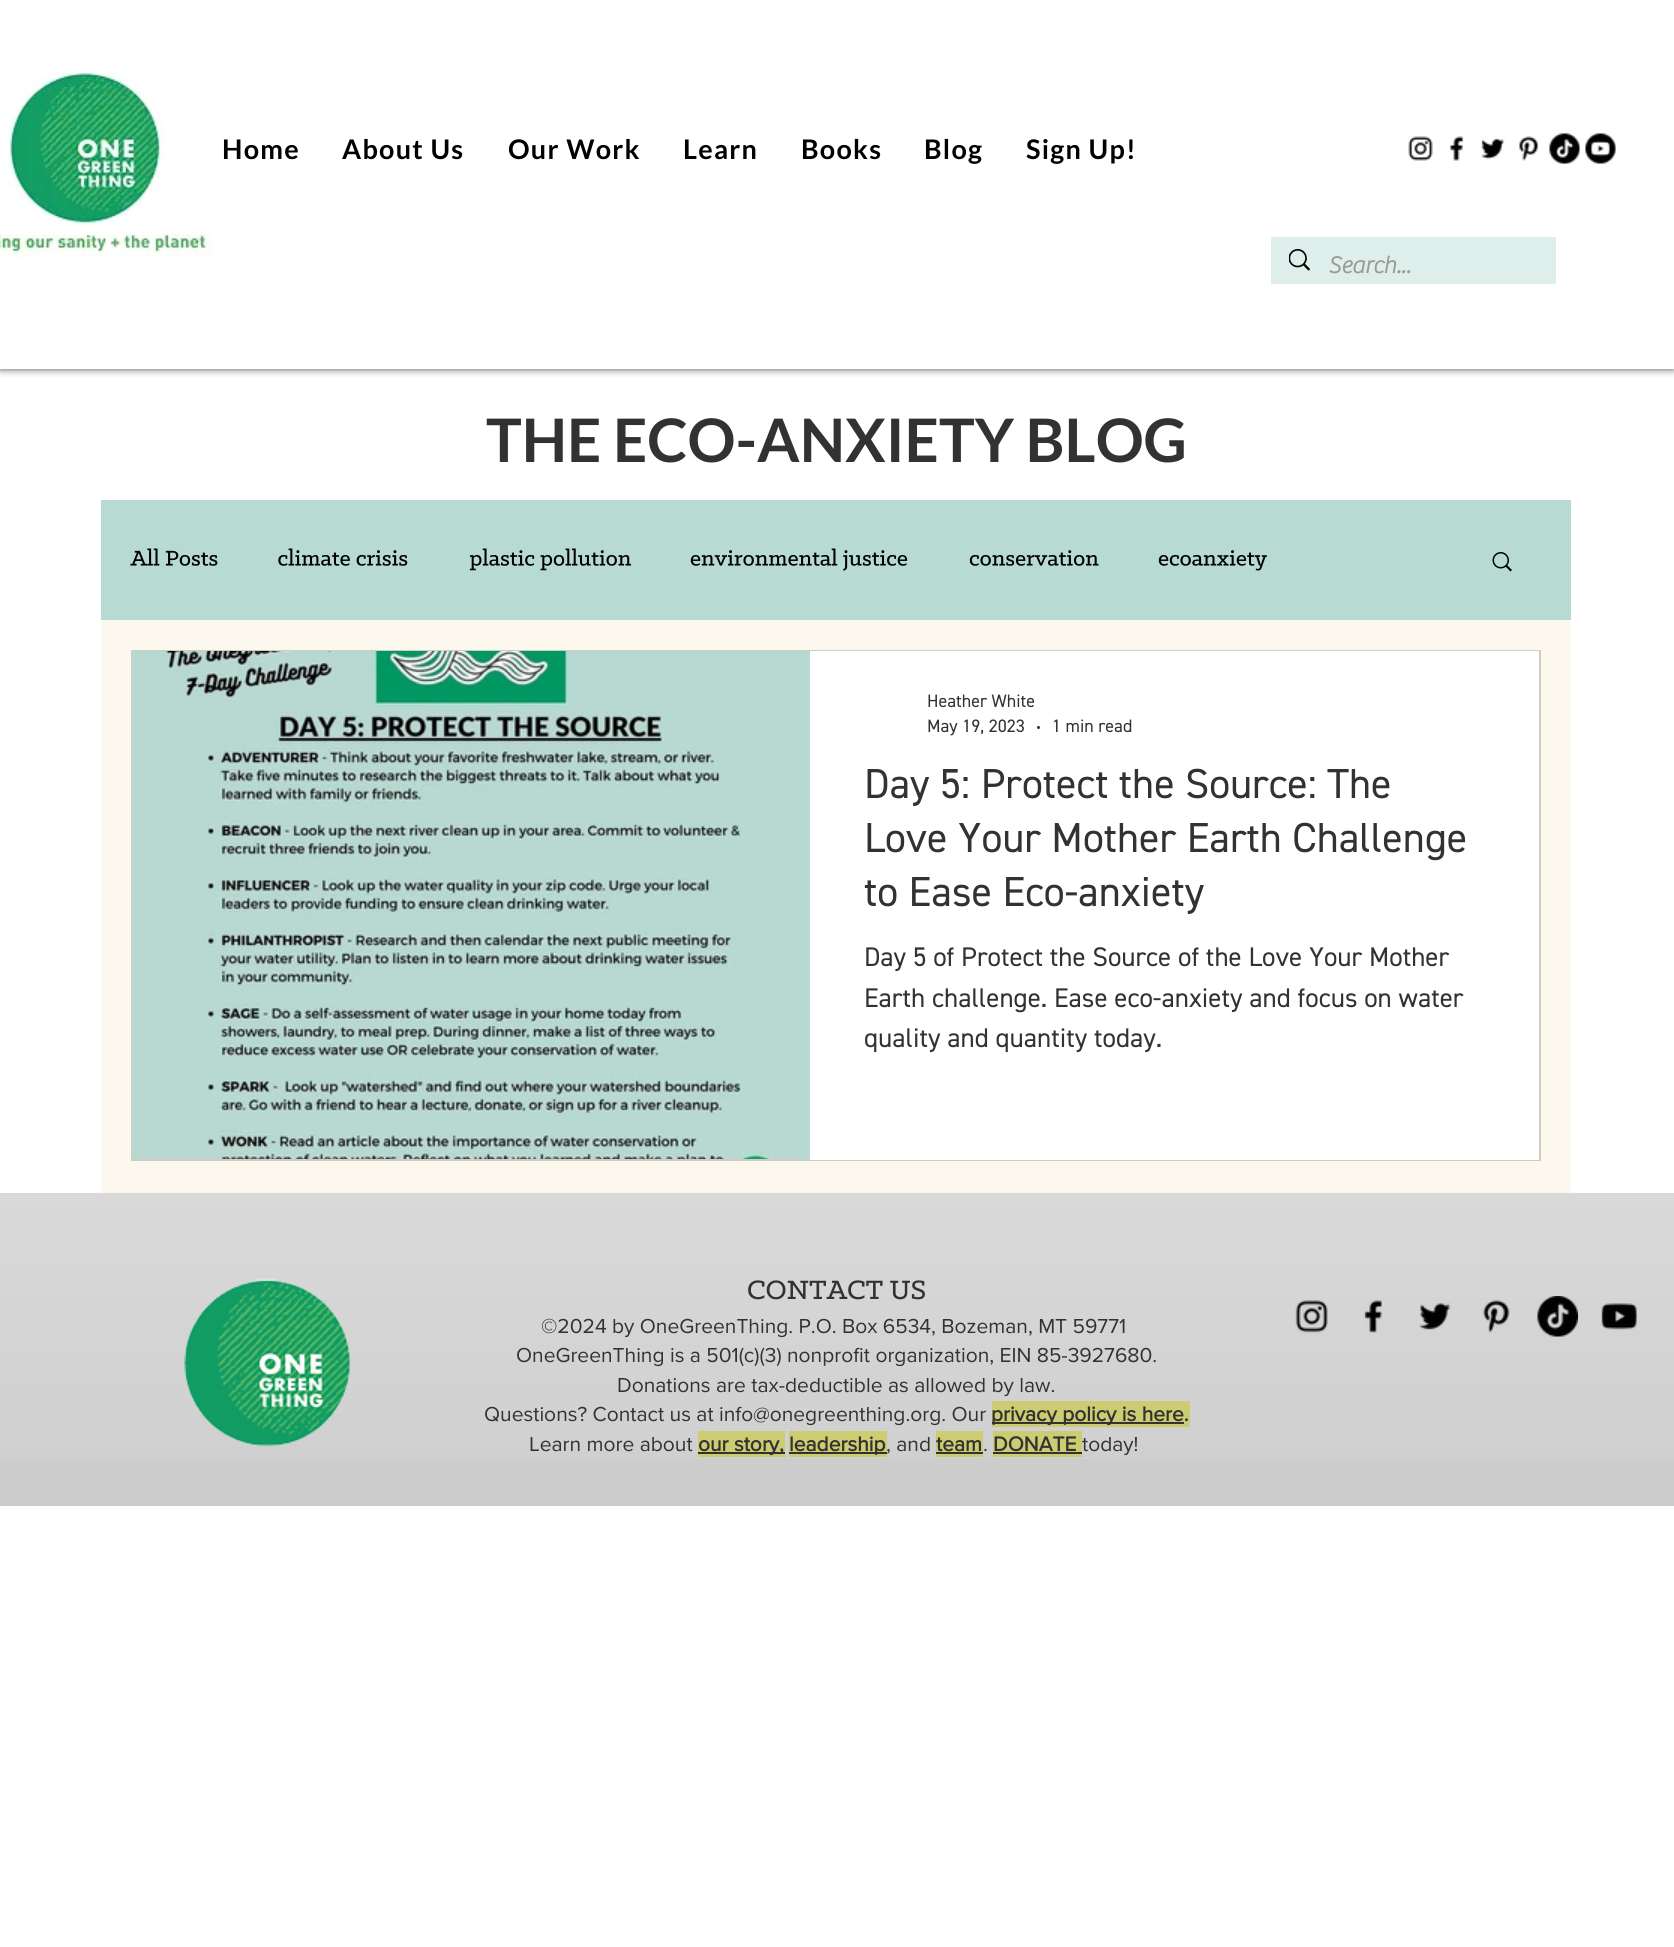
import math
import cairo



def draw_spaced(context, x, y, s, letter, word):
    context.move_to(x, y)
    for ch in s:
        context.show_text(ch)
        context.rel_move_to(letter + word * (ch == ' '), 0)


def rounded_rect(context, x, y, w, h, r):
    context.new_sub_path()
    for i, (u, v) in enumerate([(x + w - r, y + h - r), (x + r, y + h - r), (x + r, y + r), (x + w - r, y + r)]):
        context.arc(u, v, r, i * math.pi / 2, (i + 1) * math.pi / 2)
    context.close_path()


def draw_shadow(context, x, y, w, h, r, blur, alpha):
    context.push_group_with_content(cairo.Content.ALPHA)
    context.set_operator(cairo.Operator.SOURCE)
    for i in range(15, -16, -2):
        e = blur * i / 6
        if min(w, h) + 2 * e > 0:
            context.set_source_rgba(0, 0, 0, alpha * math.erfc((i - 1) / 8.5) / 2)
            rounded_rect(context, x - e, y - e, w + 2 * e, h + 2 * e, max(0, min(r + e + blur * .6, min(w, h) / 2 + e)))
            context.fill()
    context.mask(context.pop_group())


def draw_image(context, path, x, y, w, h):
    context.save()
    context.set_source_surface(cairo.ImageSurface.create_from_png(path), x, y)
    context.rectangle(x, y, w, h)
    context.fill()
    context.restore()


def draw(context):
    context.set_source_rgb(1, 1, 1)
    context.paint()
    context.save()
    context.rectangle(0, 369, 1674, 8)
    context.clip()
    context.set_source_rgb(0, 0, 0)
    draw_shadow(context, 0, 0, 1674, 369, 0, 4, 0.7)
    context.restore()
    draw_image(context, "images/1.png", 0, 68, 213, 190)
    draw_image(context, "images/2.png", 1408, 136, 25, 25)
    draw_image(context, "images/3.png", 1450, 136, 14, 25)
    draw_image(context, "images/4.png", 1481, 138, 24, 22)
    draw_image(context, "images/5.png", 1519, 136, 20, 25)
    draw_image(context, "images/6.png", 1549, 133, 31, 31)
    draw_image(context, "images/7.png", 1585, 133, 31, 31)
    context.set_source_rgb(222 / 255, 238 / 255, 234 / 255)
    context.rectangle(1271, 237, 285, 47)
    context.fill()
    draw_image(context, "images/8.png", 1289, 249, 21, 22)
    context.set_source_rgb(253 / 255, 248 / 255, 238 / 255)
    context.rectangle(101, 620, 1470, 573)
    context.fill()
    context.set_source_rgb(183 / 255, 218 / 255, 210 / 255)
    context.rectangle(101, 500, 1470, 120)
    context.fill()
    draw_image(context, "images/9.png", 130, 548, 88, 18)
    draw_image(context, "images/10.png", 278, 548, 130, 18)
    draw_image(context, "images/11.png", 469, 548, 162, 23)
    draw_image(context, "images/12.png", 690, 548, 218, 23)
    draw_image(context, "images/13.png", 969, 550, 130, 16)
    draw_image(context, "images/14.png", 1158, 550, 109, 21)
    draw_image(context, "images/15.png", 1492, 552, 20, 20)
    context.rectangle(132, 651, 1408, 509)
    context.set_source_rgb(208 / 255, 204 / 255, 196 / 255)
    context.stroke()
    draw_image(context, "images/16.png", 132, 651, 678, 508)
    context.set_source_rgb(1, 1, 1)
    context.rectangle(810, 651, 729, 509)
    context.fill()
    context.set_source_rgb(51 / 255, 50 / 255, 48 / 255)
    context.arc(1038.5, 727.5, 1.5, 0, 2 * math.pi)
    context.fill()
    context.set_source_rgb(204 / 255, 204 / 255, 204 / 255)
    context.rectangle(0, 1193, 1674, 313)
    context.fill()
    draw_image(context, "images/17.png", 0, 1193, 1674, 266)
    draw_image(context, "images/18.png", 183, 1278, 168, 169)
    draw_image(context, "images/19.png", 748, 1280, 177, 20)
    context.set_source_rgb(204 / 255, 204 / 255, 115 / 255)
    context.rectangle(992, 1401, 198, 26)
    context.fill()
    context.set_source_rgb(51 / 255, 50 / 255, 48 / 255)
    context.rectangle(992, 1422, 192, 2)
    context.fill()
    context.set_source_rgb(204 / 255, 204 / 255, 115 / 255)
    context.rectangle(698, 1431, 87, 26)
    context.fill()
    context.set_source_rgb(51 / 255, 50 / 255, 48 / 255)
    context.rectangle(698, 1452, 87, 2)
    context.fill()
    context.set_source_rgb(204 / 255, 204 / 255, 115 / 255)
    context.rectangle(789, 1431, 98, 26)
    context.fill()
    context.set_source_rgb(51 / 255, 50 / 255, 48 / 255)
    context.rectangle(789, 1452, 98, 2)
    context.fill()
    context.set_source_rgb(204 / 255, 204 / 255, 115 / 255)
    context.rectangle(936, 1431, 47, 26)
    context.fill()
    context.set_source_rgb(51 / 255, 50 / 255, 48 / 255)
    context.rectangle(936, 1452, 47, 2)
    context.fill()
    context.set_source_rgb(204 / 255, 204 / 255, 115 / 255)
    context.rectangle(993, 1431, 89, 26)
    context.fill()
    context.set_source_rgb(51 / 255, 50 / 255, 48 / 255)
    context.rectangle(993, 1452, 89, 2)
    context.fill()
    draw_image(context, "images/20.png", 1295, 1300, 33, 33)
    draw_image(context, "images/21.png", 1364, 1300, 18, 33)
    draw_image(context, "images/22.png", 1419, 1303, 32, 27)
    draw_image(context, "images/23.png", 1483, 1300, 27, 33)
    draw_image(context, "images/24.png", 1537, 1296, 41, 41)
    draw_image(context, "images/25.png", 1601, 1303, 36, 27)
    context.select_font_face("Lato", cairo.FontSlant.NORMAL, cairo.FontWeight.BOLD)
    context.set_font_size(27)
    context.set_source_rgb(0, 0, 0)
    draw_spaced(context, 222, 159, "Home", 1.25, 0)
    draw_spaced(context, 342, 159, "About Us", 1.25, 0)
    draw_spaced(context, 508, 159, "Our Work", 1.25, 0)
    draw_spaced(context, 683, 159, "Learn", 1.25, 0)
    draw_spaced(context, 801, 159, "Books", 1.25, 0)
    draw_spaced(context, 924, 159, "Blog", 1.25, 0)
    draw_spaced(context, 1026, 159, "Sign Up!", 1.25, 0)
    context.select_font_face("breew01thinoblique", cairo.FontSlant.NORMAL, cairo.FontWeight.BOLD)
    context.set_font_size(24)
    context.set_source_rgb(153 / 255, 153 / 255, 153 / 255)
    context.move_to(1328, 273)
    context.show_text("Search...")
    context.select_font_face("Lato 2", cairo.FontSlant.NORMAL, cairo.FontWeight.BOLD)
    context.set_font_size(60)
    context.set_source_rgb(51 / 255, 50 / 255, 48 / 255)
    context.move_to(486, 462)
    context.show_text("THE ECO-ANXIETY BLOG")
    context.select_font_face("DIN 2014")
    context.set_font_size(18)
    context.move_to(927, 707)
    context.show_text("Heather White")
    context.move_to(927, 732)
    context.show_text("May 19, 2023")
    context.move_to(1052, 732)
    context.show_text("1 min read")
    context.set_font_size(42)
    context.move_to(864, 798)
    context.show_text("Day 5: Protect the Source: The")
    context.move_to(864, 852)
    context.show_text("Love Your Mother Earth Challenge")
    context.move_to(864, 906)
    context.show_text("to Ease Eco-anxiety")
    context.set_font_size(27)
    context.move_to(864, 966)
    context.show_text("Day 5 of Protect the Source of the Love Your Mother")
    context.move_to(864, 1007)
    context.show_text("Earth challenge. Ease eco-anxiety and focus on water")
    context.move_to(864, 1047)
    context.show_text("quality and quantity today.")
    context.select_font_face("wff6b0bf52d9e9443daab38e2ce")
    context.set_font_size(21)
    context.move_to(541, 1333)
    context.show_text("©2024 by OneGreenThing. P.O. Box 6534, Bozeman, MT 59771")
    context.move_to(516, 1362)
    context.show_text("OneGreenThing is a 501(c)(3) nonprofit organization, EIN 85-3927680.")
    context.move_to(617, 1392)
    context.show_text("Donations are tax-deductible as allowed by law.")
    context.move_to(484, 1421)
    context.show_text("Questions? Contact us at info@onegreenthing.org. Our")
    context.select_font_face("wff6b0bf52d9e9443daab38e2ce", cairo.FontSlant.NORMAL, cairo.FontWeight.BOLD)
    context.move_to(991, 1421)
    context.show_text("privacy policy is here.")
    context.select_font_face("wff6b0bf52d9e9443daab38e2ce")
    context.move_to(529, 1451)
    context.show_text("Learn more about")
    context.select_font_face("wff6b0bf52d9e9443daab38e2ce", cairo.FontSlant.NORMAL, cairo.FontWeight.BOLD)
    context.move_to(698, 1451)
    context.show_text("our story,")
    context.move_to(789, 1451)
    context.show_text("leadership")
    context.select_font_face("wff6b0bf52d9e9443daab38e2ce")
    context.move_to(886, 1451)
    context.show_text(", and")
    context.select_font_face("wff6b0bf52d9e9443daab38e2ce", cairo.FontSlant.NORMAL, cairo.FontWeight.BOLD)
    context.move_to(936, 1451)
    context.show_text("team")
    context.select_font_face("wff6b0bf52d9e9443daab38e2ce")
    context.move_to(983, 1451)
    context.show_text(".")
    context.select_font_face("wff6b0bf52d9e9443daab38e2ce", cairo.FontSlant.NORMAL, cairo.FontWeight.BOLD)
    context.move_to(993, 1451)
    context.show_text("DONATE")
    context.select_font_face("wff6b0bf52d9e9443daab38e2ce")
    context.move_to(1082, 1451)
    context.show_text("today!")


surface = cairo.ImageSurface(cairo.Format.RGB24, 1674, 1947)
context = cairo.Context(surface)
options = cairo.FontOptions()
options.set_hint_metrics(cairo.HintMetrics.OFF)
options.set_hint_style(cairo.HintStyle.NONE)
context.set_font_options(options)
context.set_miter_limit(4)
draw(context)
surface.write_to_png("out.png")
